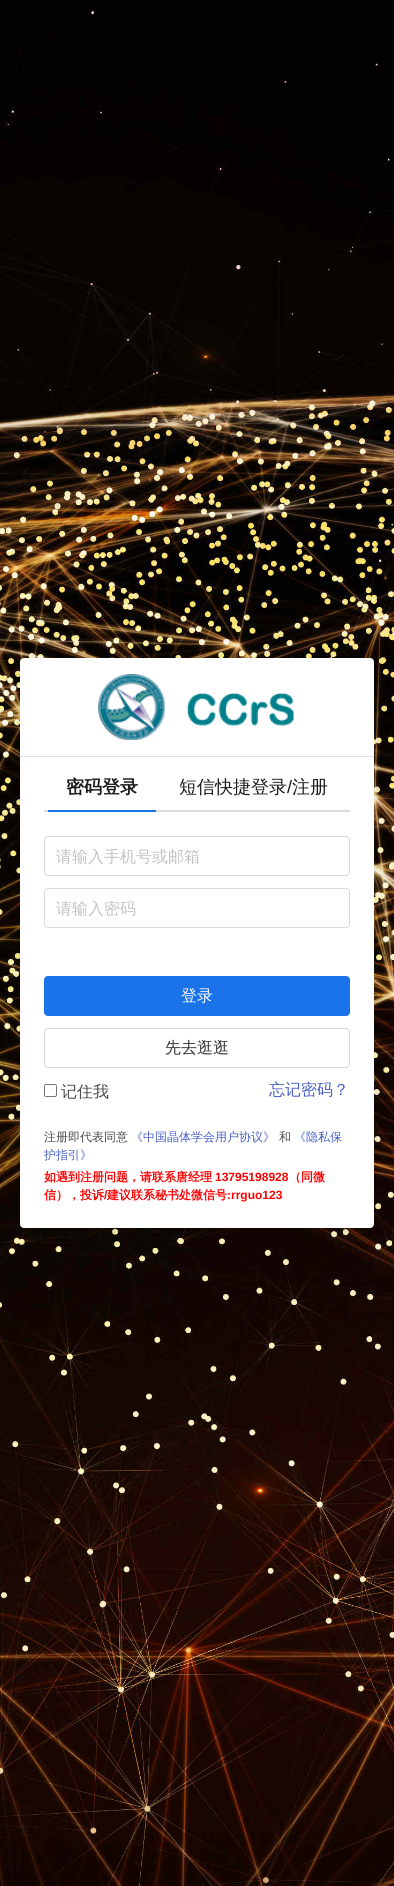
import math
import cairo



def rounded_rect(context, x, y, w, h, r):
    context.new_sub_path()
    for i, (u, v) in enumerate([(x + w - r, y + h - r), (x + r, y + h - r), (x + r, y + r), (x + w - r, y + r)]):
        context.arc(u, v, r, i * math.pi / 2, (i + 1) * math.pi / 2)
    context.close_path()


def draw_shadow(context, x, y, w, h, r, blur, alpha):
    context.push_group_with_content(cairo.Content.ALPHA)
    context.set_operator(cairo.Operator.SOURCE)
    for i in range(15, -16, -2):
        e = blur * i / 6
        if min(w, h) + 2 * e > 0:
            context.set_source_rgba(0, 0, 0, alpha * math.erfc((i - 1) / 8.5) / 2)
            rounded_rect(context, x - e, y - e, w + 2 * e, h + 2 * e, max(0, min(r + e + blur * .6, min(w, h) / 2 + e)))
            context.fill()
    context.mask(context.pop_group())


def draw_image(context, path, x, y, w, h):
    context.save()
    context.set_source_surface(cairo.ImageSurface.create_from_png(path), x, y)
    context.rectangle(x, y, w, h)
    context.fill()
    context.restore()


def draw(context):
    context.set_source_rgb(1, 1, 1)
    context.paint()
    draw_image(context, "images/1.png", 0, 0, 394, 1886)
    context.set_source_rgb(10 / 255, 10 / 255, 10 / 255)
    draw_shadow(context, 22, 668, 350, 566, 2, 8, 0.1)
    context.set_source_rgb(1, 1, 1)
    rounded_rect(context, 20, 658, 354, 570, 4)
    context.fill()
    context.set_source_rgb(224 / 255, 224 / 255, 224 / 255)
    context.rectangle(20, 756, 354, 1)
    context.fill()
    draw_image(context, "images/2.png", 98, 674, 196, 66)
    context.set_source_rgb(219 / 255, 219 / 255, 219 / 255)
    context.rectangle(44, 810, 306, 2)
    context.fill()
    context.set_source_rgb(26 / 255, 115 / 255, 232 / 255)
    context.rectangle(48, 810, 108, 2)
    context.fill()
    rounded_rect(context, 44.5, 836.5, 305, 39, 3.5)
    context.set_source_rgb(219 / 255, 219 / 255, 219 / 255)
    context.set_line_width(1)
    context.stroke()
    rounded_rect(context, 44.5, 888.5, 305, 39, 3.5)
    context.stroke()
    context.set_source_rgb(26 / 255, 115 / 255, 232 / 255)
    rounded_rect(context, 44, 976, 306, 40, 4)
    context.fill()
    rounded_rect(context, 44.5, 1028.5, 305, 39, 3.5)
    context.set_source_rgb(219 / 255, 219 / 255, 219 / 255)
    context.stroke()
    rounded_rect(context, 44.5, 1084.5, 12, 12, 1.5)
    context.set_source_rgb(118 / 255, 118 / 255, 118 / 255)
    context.stroke()
    context.select_font_face("WenQuanYi Zen Hei", cairo.FontSlant.NORMAL, cairo.FontWeight.BOLD)
    context.set_font_size(18)
    context.set_source_rgb(26 / 255, 26 / 255, 26 / 255)
    context.move_to(66, 793)
    context.show_text("密码登录")
    context.select_font_face("WenQuanYi Zen Hei Medium")
    context.move_to(179, 793)
    context.show_text("短信快捷登录")
    context.select_font_face("Liberation Sans")
    context.move_to(287, 793)
    context.show_text("/")
    context.select_font_face("WenQuanYi Zen Hei Medium")
    context.move_to(292, 793)
    context.show_text("注册")
    context.set_font_size(16)
    context.set_source_rgb(195 / 255, 195 / 255, 195 / 255)
    context.move_to(56, 862)
    context.show_text("请输入手机号或邮箱")
    context.move_to(56, 914)
    context.show_text("请输入密码")
    context.set_source_rgb(1, 1, 1)
    context.move_to(181, 1001)
    context.show_text("登录")
    context.set_source_rgb(54 / 255, 54 / 255, 54 / 255)
    context.move_to(165, 1053)
    context.show_text("先去逛逛")
    context.set_source_rgb(74 / 255, 74 / 255, 74 / 255)
    context.move_to(61, 1097)
    context.show_text("记住我")
    context.set_source_rgb(72 / 255, 95 / 255, 199 / 255)
    context.move_to(269, 1095)
    context.show_text("忘记密码？")
    context.set_font_size(12)
    context.set_source_rgb(74 / 255, 74 / 255, 74 / 255)
    context.move_to(44, 1141)
    context.show_text("注册即代表同意")
    context.set_source_rgb(72 / 255, 95 / 255, 199 / 255)
    context.move_to(131, 1141)
    context.show_text("《中国晶体学会用户协议》")
    context.set_source_rgb(74 / 255, 74 / 255, 74 / 255)
    context.move_to(279, 1141)
    context.show_text("和")
    context.set_source_rgb(72 / 255, 95 / 255, 199 / 255)
    context.move_to(294, 1141)
    context.show_text("《隐私保")
    context.move_to(44, 1159)
    context.show_text("护指引》")
    context.select_font_face("WenQuanYi Zen Hei", cairo.FontSlant.NORMAL, cairo.FontWeight.BOLD)
    context.set_source_rgb(1, 0, 0)
    context.move_to(44, 1181)
    context.show_text("如遇到注册问题，请联系唐经理")
    context.select_font_face("Liberation Sans", cairo.FontSlant.NORMAL, cairo.FontWeight.BOLD)
    context.move_to(215, 1181)
    context.show_text("13795198928")
    context.select_font_face("WenQuanYi Zen Hei", cairo.FontSlant.NORMAL, cairo.FontWeight.BOLD)
    context.move_to(289, 1181)
    context.show_text("（同微")
    context.move_to(44, 1199)
    context.show_text("信），投诉")
    context.select_font_face("Liberation Sans", cairo.FontSlant.NORMAL, cairo.FontWeight.BOLD)
    context.move_to(104, 1199)
    context.show_text("/")
    context.select_font_face("WenQuanYi Zen Hei", cairo.FontSlant.NORMAL, cairo.FontWeight.BOLD)
    context.move_to(107, 1199)
    context.show_text("建议联系秘书处微信号")
    context.select_font_face("Liberation Sans", cairo.FontSlant.NORMAL, cairo.FontWeight.BOLD)
    context.move_to(227, 1199)
    context.show_text(":rrguo123")


surface = cairo.ImageSurface(cairo.Format.RGB24, 394, 1886)
context = cairo.Context(surface)
options = cairo.FontOptions()
options.set_hint_metrics(cairo.HintMetrics.OFF)
options.set_hint_style(cairo.HintStyle.NONE)
context.set_font_options(options)
context.set_miter_limit(4)
draw(context)
surface.write_to_png("out.png")
